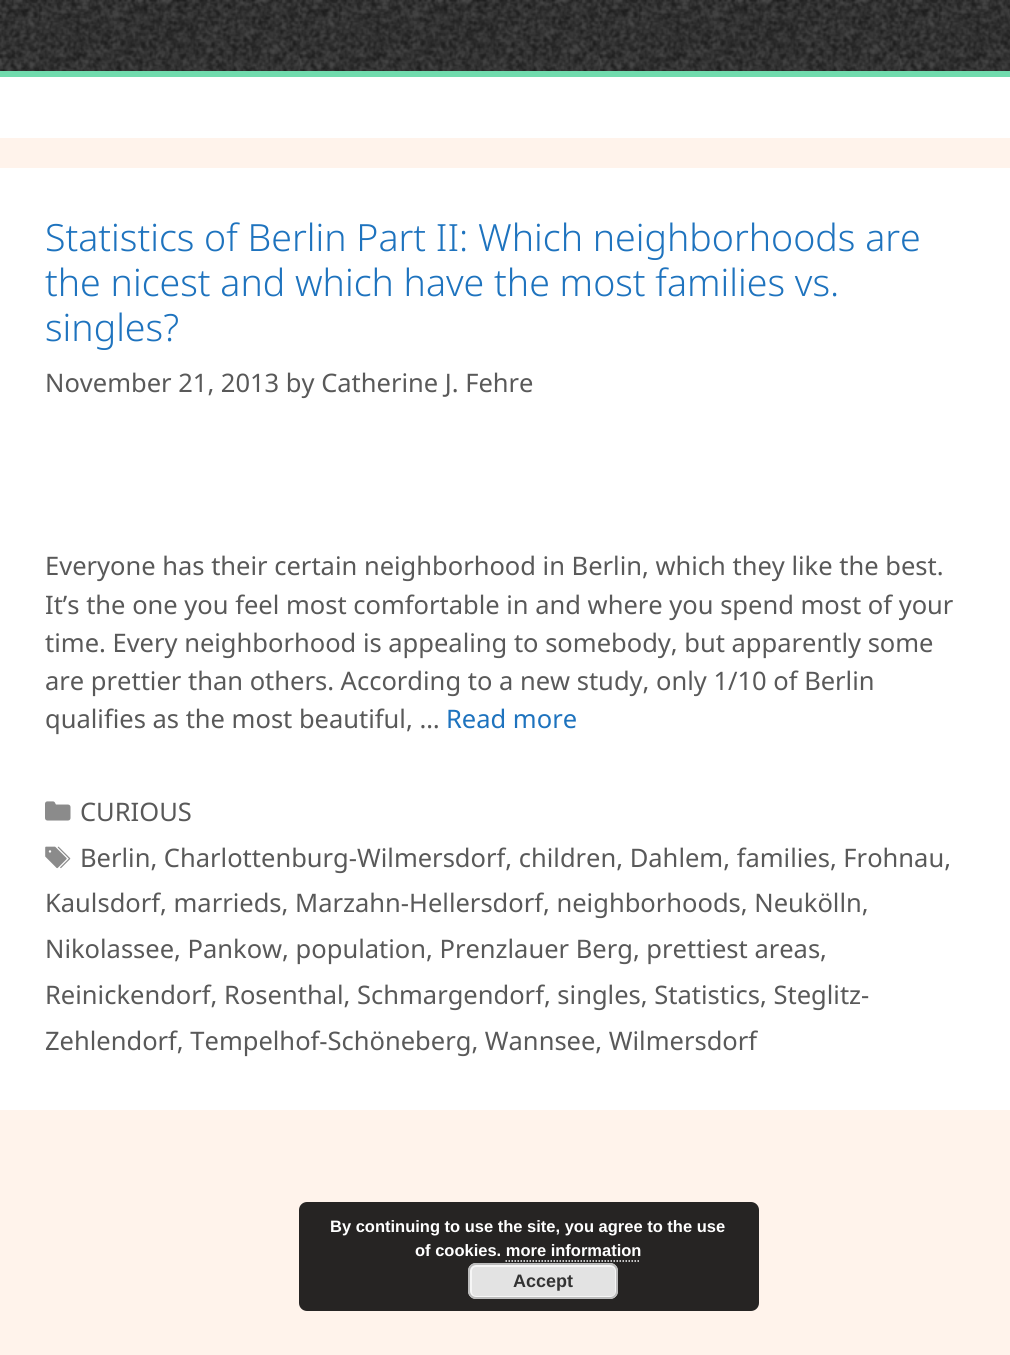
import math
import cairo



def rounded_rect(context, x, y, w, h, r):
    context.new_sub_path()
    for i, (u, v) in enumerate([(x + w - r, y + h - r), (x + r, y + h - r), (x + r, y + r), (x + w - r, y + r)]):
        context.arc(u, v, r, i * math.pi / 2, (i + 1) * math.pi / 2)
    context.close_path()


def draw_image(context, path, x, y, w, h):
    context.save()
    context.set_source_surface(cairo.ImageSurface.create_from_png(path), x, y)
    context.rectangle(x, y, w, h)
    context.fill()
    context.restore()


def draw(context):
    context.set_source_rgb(1, 243 / 255, 235 / 255)
    context.paint()
    draw_image(context, "images/1.png", 0, 0, 1010, 71)
    context.set_source_rgb(112 / 255, 219 / 255, 173 / 255)
    context.rectangle(0, 71, 1010, 6)
    context.fill()
    context.set_source_rgb(1, 1, 1)
    context.rectangle(0, 77, 1010, 61)
    context.fill()
    context.rectangle(0, 168, 1010, 942)
    context.fill()
    draw_image(context, "images/2.png", 45, 801, 26, 20)
    draw_image(context, "images/3.png", 45, 846, 26, 23)
    context.set_source_rgb(38 / 255, 36 / 255, 35 / 255)
    rounded_rect(context, 299, 1202, 460, 109, 8)
    context.fill()
    context.new_path()
    context.move_to(505.5, 1261)
    context.line_to(640.5, 1261)
    context.set_source_rgb(1, 1, 1)
    context.set_line_width(1.5)
    context.set_dash([1.5, 1.5])
    context.stroke()
    context.set_source_rgb(227 / 255, 227 / 255, 227 / 255)
    rounded_rect(context, 468, 1263, 150, 36, 8)
    context.fill()
    rounded_rect(context, 471, 1266, 145, 31, 5)
    context.set_source_rgb(246 / 255, 246 / 255, 246 / 255)
    context.set_line_width(2)
    context.set_dash([])
    context.stroke()
    rounded_rect(context, 469, 1264, 148, 34, 7)
    context.set_source_rgb(187 / 255, 187 / 255, 187 / 255)
    context.stroke()
    context.select_font_face("Noto Sans Light")
    context.set_font_size(37.5)
    context.set_source_rgb(30 / 255, 115 / 255, 190 / 255)
    context.move_to(45, 251)
    context.show_text("Statistics of Berlin Part II: Which neighborhoods are")
    context.move_to(45, 296)
    context.show_text("the nicest and which have the most families vs.")
    context.move_to(45, 341)
    context.show_text("singles?")
    context.select_font_face("Noto Sans")
    context.set_font_size(25.5)
    context.set_source_rgb(89 / 255, 89 / 255, 89 / 255)
    context.move_to(45, 392)
    context.show_text("November 21, 2013 by Catherine J. Fehre")
    context.move_to(45, 575)
    context.show_text("Everyone has their certain neighborhood in Berlin, which they like the best.")
    context.move_to(45, 614)
    context.show_text("It’s the one you feel most comfortable in and where you spend most of your")
    context.move_to(45, 652)
    context.show_text("time. Every neighborhood is appealing to somebody, but apparently some")
    context.move_to(45, 690)
    context.show_text("are prettier than others. According to a new study, only 1/10 of Berlin")
    context.move_to(45, 728)
    context.show_text("qualifies as the most beautiful, …")
    context.set_source_rgb(30 / 255, 115 / 255, 190 / 255)
    context.move_to(446, 728)
    context.show_text("Read more")
    context.set_source_rgb(89 / 255, 89 / 255, 89 / 255)
    context.move_to(80, 821)
    context.show_text("CURIOUS")
    context.move_to(80, 867)
    context.show_text("Berlin, Charlottenburg-Wilmersdorf, children, Dahlem, families, Frohnau,")
    context.move_to(45, 912)
    context.show_text("Kaulsdorf, marrieds, Marzahn-Hellersdorf, neighborhoods, Neukölln,")
    context.move_to(45, 958)
    context.show_text("Nikolassee, Pankow, population, Prenzlauer Berg, prettiest areas,")
    context.move_to(45, 1004)
    context.show_text("Reinickendorf, Rosenthal, Schmargendorf, singles, Statistics, Steglitz-")
    context.move_to(45, 1050)
    context.show_text("Zehlendorf, Tempelhof-Schöneberg, Wannsee, Wilmersdorf")
    context.select_font_face("Liberation Sans", cairo.FontSlant.NORMAL, cairo.FontWeight.BOLD)
    context.set_font_size(16.5)
    context.set_source_rgb(1, 1, 1)
    context.move_to(330, 1232)
    context.show_text("By continuing to use the site, you agree to the use")
    context.move_to(415, 1256)
    context.show_text("of cookies. more information")
    context.set_font_size(18)
    context.set_source_rgb(51 / 255, 51 / 255, 51 / 255)
    context.move_to(513, 1287)
    context.show_text("Accept")


surface = cairo.ImageSurface(cairo.Format.RGB24, 1010, 1355)
context = cairo.Context(surface)
options = cairo.FontOptions()
options.set_hint_metrics(cairo.HintMetrics.OFF)
options.set_hint_style(cairo.HintStyle.NONE)
context.set_font_options(options)
context.set_miter_limit(4)
draw(context)
surface.write_to_png("out.png")
